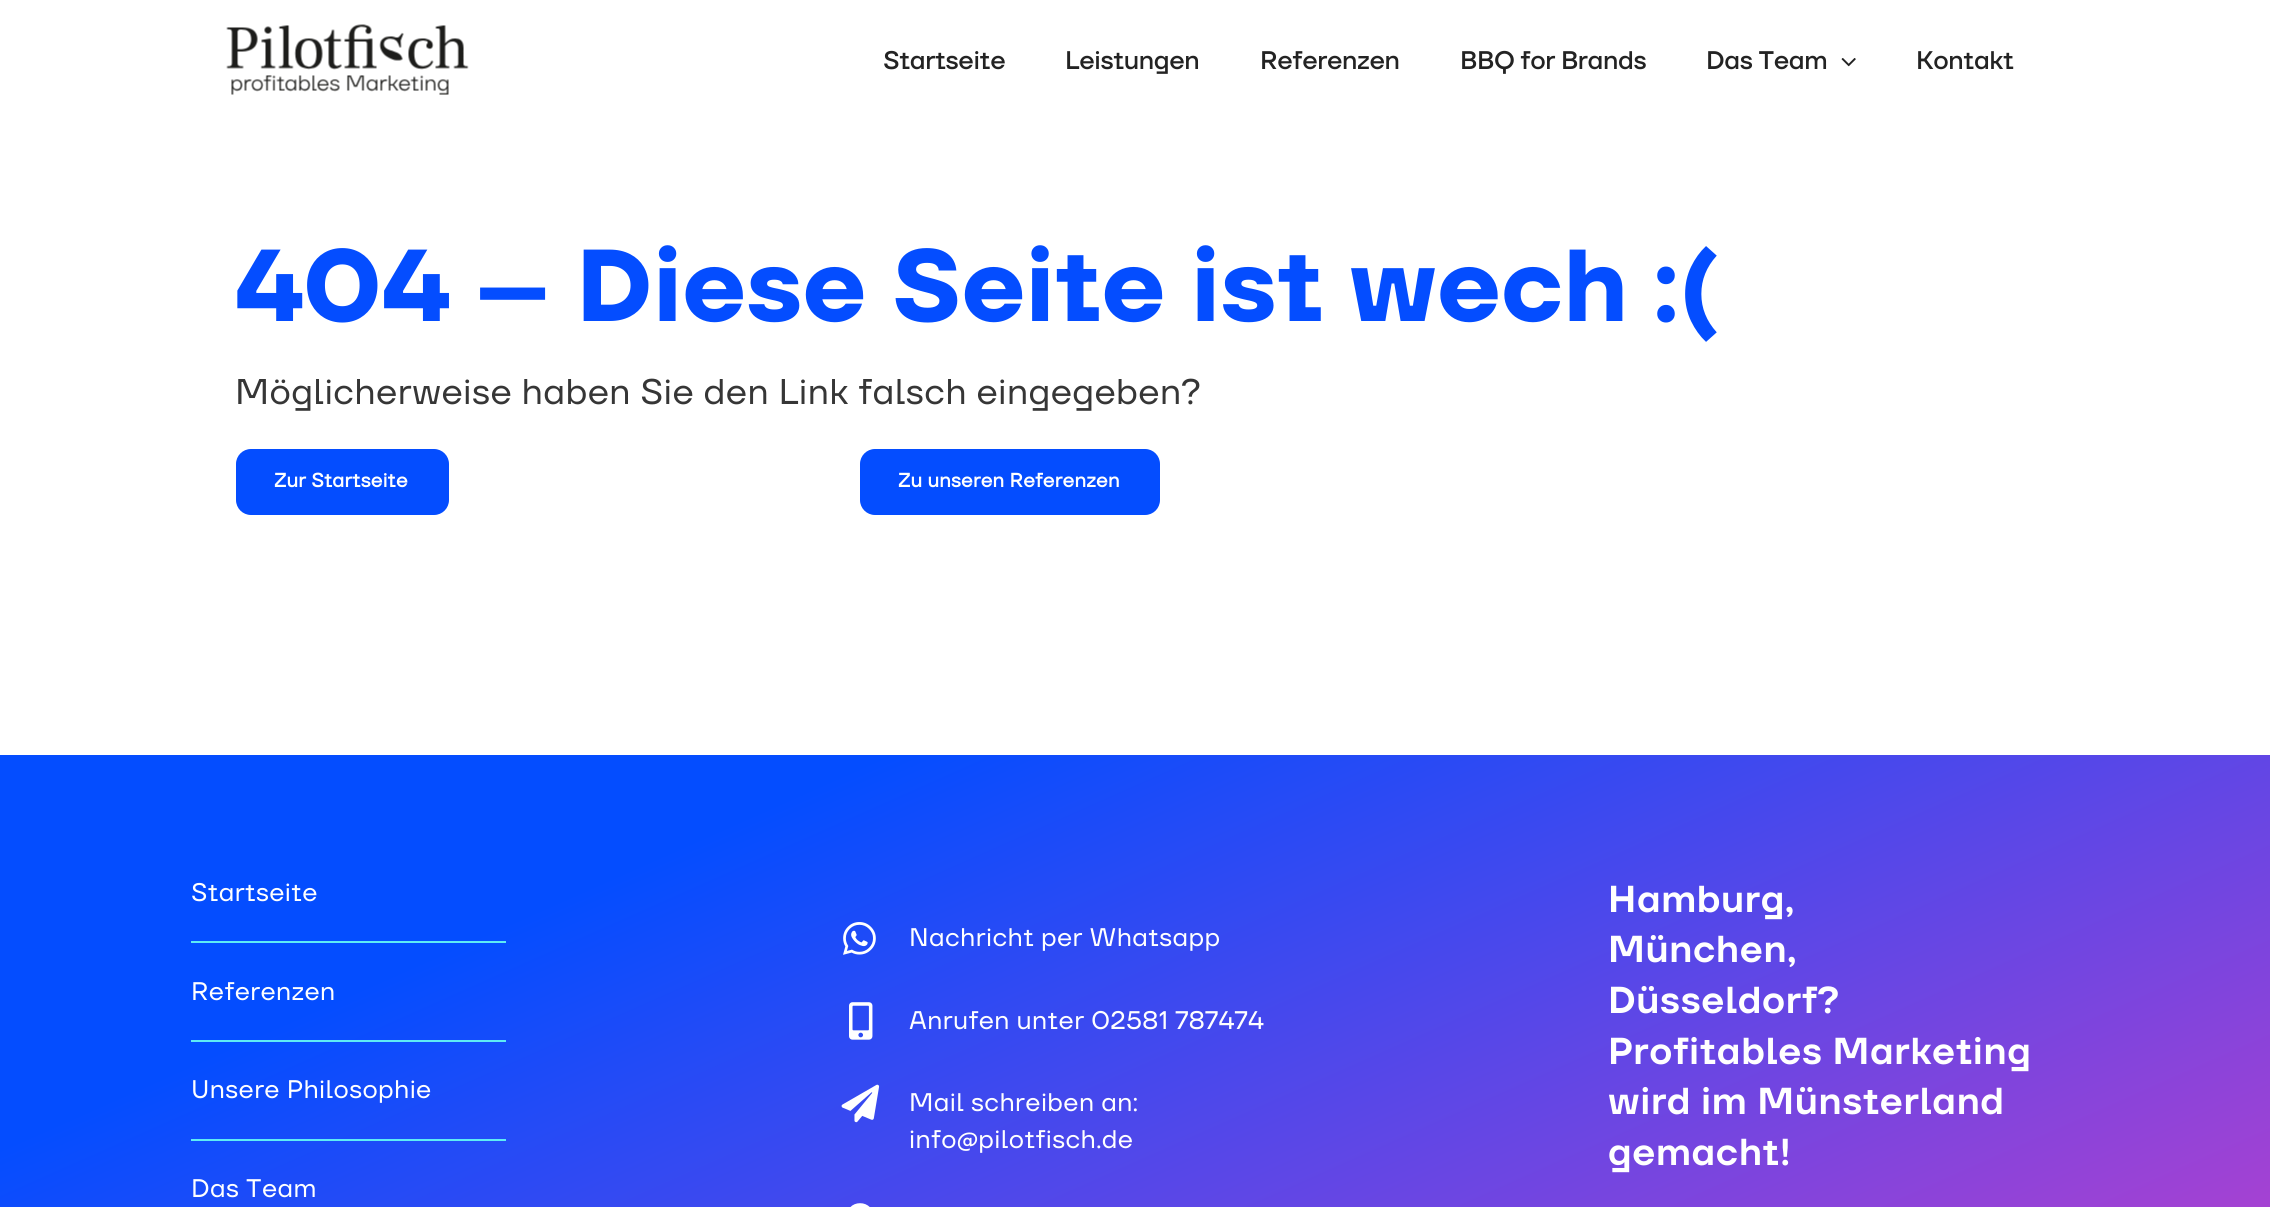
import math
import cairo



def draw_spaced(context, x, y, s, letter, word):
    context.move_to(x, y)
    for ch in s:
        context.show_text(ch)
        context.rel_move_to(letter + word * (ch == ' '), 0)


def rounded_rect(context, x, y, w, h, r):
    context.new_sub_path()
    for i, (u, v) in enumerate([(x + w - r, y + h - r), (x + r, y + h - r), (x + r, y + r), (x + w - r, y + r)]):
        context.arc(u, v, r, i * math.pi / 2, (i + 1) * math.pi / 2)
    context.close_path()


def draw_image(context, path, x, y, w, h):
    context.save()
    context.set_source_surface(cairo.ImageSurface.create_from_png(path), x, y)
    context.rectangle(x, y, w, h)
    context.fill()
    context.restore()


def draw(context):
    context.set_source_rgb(1, 1, 1)
    context.paint()
    draw_image(context, "images/1.png", 226, 24, 243, 71)
    draw_image(context, "images/2.png", 1841, 58, 15, 9)
    context.set_source_rgb(4 / 255, 77 / 255, 1)
    rounded_rect(context, 236, 449, 213, 66, 15)
    context.fill()
    rounded_rect(context, 860, 449, 300, 66, 15)
    context.fill()
    gradient = cairo.LinearGradient(750, 421, 1521, 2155)
    gradient.add_color_stop_rgba(0.19, 4 / 255, 77 / 255, 1, 1)
    gradient.add_color_stop_rgba(0.96, 245 / 255, 60 / 255, 188 / 255, 1)
    context.set_source(gradient)
    context.rectangle(0, 755, 2270, 452)
    context.fill()
    context.set_source_rgb(94 / 255, 236 / 255, 245 / 255)
    context.rectangle(191, 941, 315, 2)
    context.fill()
    context.rectangle(191, 1040, 315, 2)
    context.fill()
    context.rectangle(191, 1139, 315, 2)
    context.fill()
    draw_image(context, "images/3.png", 843, 922, 33, 33)
    draw_image(context, "images/4.png", 849, 1002, 24, 38)
    draw_image(context, "images/5.png", 841, 1084, 39, 39)
    draw_image(context, "images/6.png", 850, 1203, 20, 4)
    context.select_font_face("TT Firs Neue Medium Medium")
    context.set_font_size(25.5)
    context.set_source_rgb(35 / 255, 35 / 255, 35 / 255)
    draw_spaced(context, 883, 69, "Startseite", -0.4, 0)
    draw_spaced(context, 1065, 69, "Leistungen", -0.4, 0)
    draw_spaced(context, 1260, 69, "Referenzen", -0.4, 0)
    draw_spaced(context, 1460, 69, "BBQ for Brands", -0.4, 0)
    draw_spaced(context, 1706, 69, "Das Team", -0.4, 0)
    draw_spaced(context, 1916, 69, "Kontakt", -0.4, 0)
    context.select_font_face("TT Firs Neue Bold", cairo.FontSlant.NORMAL, cairo.FontWeight.BOLD)
    context.set_font_size(102)
    context.set_source_rgb(4 / 255, 77 / 255, 1)
    draw_spaced(context, 235, 321, "404 – Diese Seite ist wech :(", 0.38, 0)
    context.select_font_face("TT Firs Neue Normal")
    context.set_font_size(35.7)
    context.set_source_rgb(54 / 255, 54 / 255, 54 / 255)
    draw_spaced(context, 235, 404, "Möglicherweise haben Sie den Link falsch eingegeben?", 0.38, 0)
    context.select_font_face("TT Firs Neue Normal", cairo.FontSlant.NORMAL, cairo.FontWeight.BOLD)
    context.set_font_size(19.5)
    context.set_source_rgb(1, 1, 1)
    draw_spaced(context, 274, 487, "Zur Startseite", 0.25, 0)
    draw_spaced(context, 898, 487, "Zu unseren Referenzen", 0.25, 0)
    context.select_font_face("TT Firs Neue Normal")
    context.set_font_size(25.5)
    draw_spaced(context, 191, 901, "Startseite", 0.38, 0)
    draw_spaced(context, 191, 1000, "Referenzen", 0.38, 0)
    draw_spaced(context, 191, 1098, "Unsere Philosophie", 0.38, 0)
    draw_spaced(context, 191, 1197, "Das Team", 0.38, 0)
    draw_spaced(context, 909, 946, "Nachricht per Whatsapp", 0.38, 0)
    draw_spaced(context, 909, 1029, "Anrufen unter 02581 787474", 0.38, 0)
    draw_spaced(context, 909, 1111, "Mail schreiben an:", 0.38, 0)
    draw_spaced(context, 909, 1148, "info@pilotfisch.de", 0.38, 0)
    context.select_font_face("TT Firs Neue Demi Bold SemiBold")
    context.set_font_size(37.5)
    draw_spaced(context, 1608, 912, "Hamburg,", 0.6, 0)
    draw_spaced(context, 1608, 962, "München,", 0.6, 0)
    draw_spaced(context, 1608, 1013, "Düsseldorf?", 0.6, 0)
    draw_spaced(context, 1608, 1064, "Profitables Marketing", 0.6, 0)
    draw_spaced(context, 1608, 1114, "wird im Münsterland", 0.6, 0)
    draw_spaced(context, 1608, 1165, "gemacht!", 0.6, 0)


surface = cairo.ImageSurface(cairo.Format.RGB24, 2270, 1207)
context = cairo.Context(surface)
options = cairo.FontOptions()
options.set_hint_metrics(cairo.HintMetrics.OFF)
options.set_hint_style(cairo.HintStyle.NONE)
context.set_font_options(options)
context.set_miter_limit(4)
draw(context)
surface.write_to_png("out.png")
